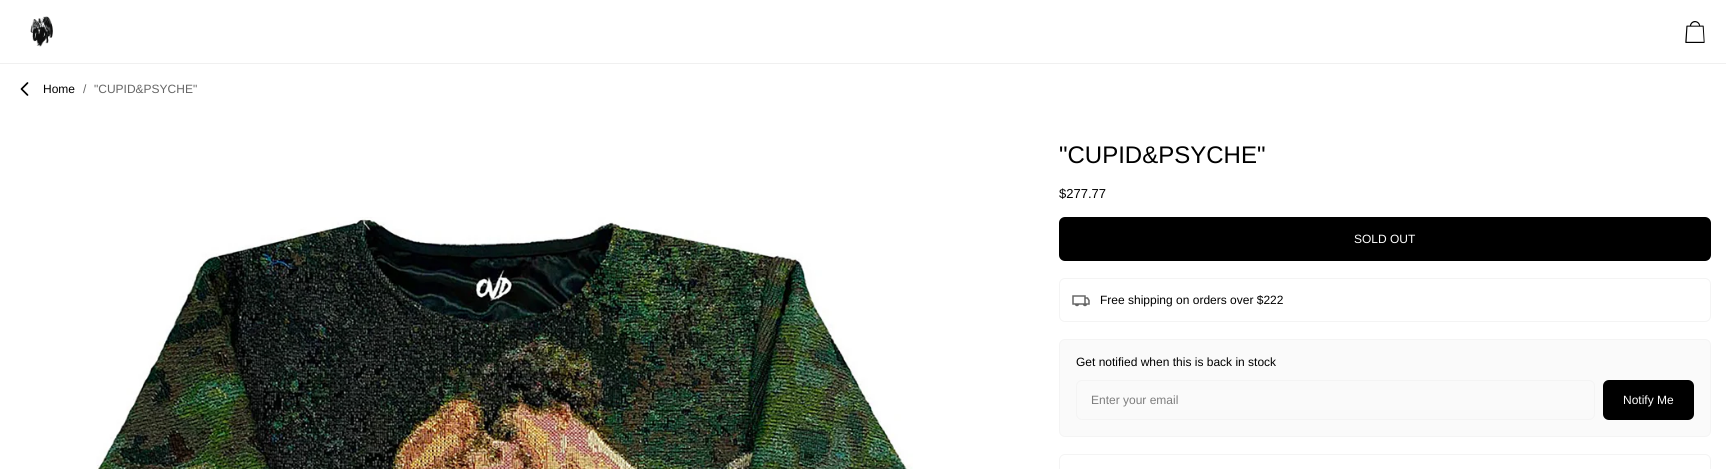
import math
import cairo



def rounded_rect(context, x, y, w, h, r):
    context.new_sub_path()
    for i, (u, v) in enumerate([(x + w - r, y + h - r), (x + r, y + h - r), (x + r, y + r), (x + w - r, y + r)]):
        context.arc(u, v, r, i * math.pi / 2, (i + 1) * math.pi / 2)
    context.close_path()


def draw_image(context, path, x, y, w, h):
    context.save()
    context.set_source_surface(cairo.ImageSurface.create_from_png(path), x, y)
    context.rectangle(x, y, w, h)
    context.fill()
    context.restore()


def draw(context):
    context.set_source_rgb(1, 1, 1)
    context.paint()
    context.set_source_rgb(240 / 255, 240 / 255, 240 / 255)
    context.rectangle(0, 63, 1726, 1)
    context.fill()
    draw_image(context, "images/1.png", 30, 16, 23, 31)
    draw_image(context, "images/2.png", 1685, 21, 20, 22)
    context.new_path()
    context.move_to(27.5, 95)
    context.line_to(21.5, 89)
    context.line_to(27.5, 83)
    context.set_source_rgb(0, 0, 0)
    context.set_line_width(1.7)
    context.set_line_cap(cairo.LineCap.ROUND)
    context.set_line_join(cairo.LineJoin.ROUND)
    context.stroke()
    draw_image(context, "images/3.png", 96, 217, 817, 252)
    rounded_rect(context, 1059, 217, 652, 44, 6)
    context.fill()
    rounded_rect(context, 1059.5, 278.5, 651, 43, 5.5)
    context.set_source_rgb(244 / 255, 244 / 255, 244 / 255)
    context.set_line_width(1)
    context.set_line_cap(cairo.LineCap.BUTT)
    context.set_line_join(cairo.LineJoin.MITER)
    context.stroke()
    draw_image(context, "images/4.png", 1072, 295, 18, 12)
    context.set_source_rgb(250 / 255, 250 / 255, 250 / 255)
    rounded_rect(context, 1059.5, 339.5, 651, 97, 5.5)
    context.fill_preserve()
    context.set_source_rgb(244 / 255, 244 / 255, 244 / 255)
    context.stroke()
    rounded_rect(context, 1076.5, 380.5, 518, 39, 5.5)
    context.stroke()
    context.set_source_rgb(0, 0, 0)
    rounded_rect(context, 1603, 380, 91, 40, 6)
    context.fill()
    rounded_rect(context, 1059.5, 454.5, 651, 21, 5.5)
    context.set_source_rgb(244 / 255, 244 / 255, 244 / 255)
    context.stroke()
    context.select_font_face("Liberation Sans")
    context.set_font_size(12)
    context.set_source_rgb(0, 0, 0)
    context.move_to(43, 93)
    context.show_text("Home")
    context.set_source_rgb(102 / 255, 102 / 255, 102 / 255)
    context.move_to(83, 93)
    context.show_text("/")
    context.move_to(94, 93)
    context.show_text("\"CUPID&PSYCHE\"")
    context.set_font_size(24)
    context.set_source_rgb(0, 0, 0)
    context.move_to(1059, 163)
    context.show_text("\"CUPID&PSYCHE\"")
    context.set_font_size(13)
    context.move_to(1059, 198)
    context.show_text("$277.77")
    context.set_font_size(12)
    context.set_source_rgb(1, 1, 1)
    context.move_to(1354, 243)
    context.show_text("SOLD OUT")
    context.set_source_rgb(0, 0, 0)
    context.move_to(1100, 304)
    context.show_text("Free shipping on orders over $222")
    context.move_to(1076, 366)
    context.show_text("Get notified when this is back in stock")
    context.set_source_rgb(125 / 255, 125 / 255, 125 / 255)
    context.move_to(1091, 404)
    context.show_text("Enter your email")
    context.set_source_rgb(1, 1, 1)
    context.move_to(1623, 404)
    context.show_text("Notify Me")


surface = cairo.ImageSurface(cairo.Format.RGB24, 1726, 469)
context = cairo.Context(surface)
options = cairo.FontOptions()
options.set_hint_metrics(cairo.HintMetrics.OFF)
options.set_hint_style(cairo.HintStyle.NONE)
context.set_font_options(options)
context.set_miter_limit(4)
draw(context)
surface.write_to_png("out.png")
